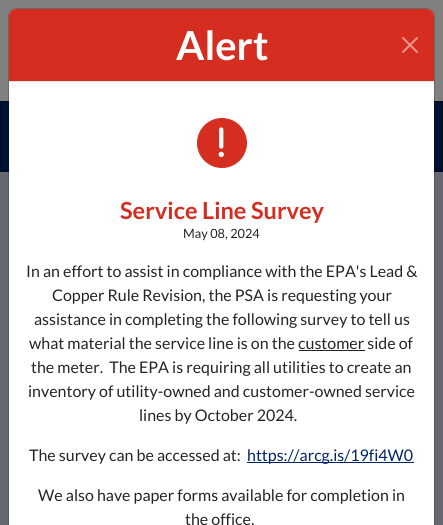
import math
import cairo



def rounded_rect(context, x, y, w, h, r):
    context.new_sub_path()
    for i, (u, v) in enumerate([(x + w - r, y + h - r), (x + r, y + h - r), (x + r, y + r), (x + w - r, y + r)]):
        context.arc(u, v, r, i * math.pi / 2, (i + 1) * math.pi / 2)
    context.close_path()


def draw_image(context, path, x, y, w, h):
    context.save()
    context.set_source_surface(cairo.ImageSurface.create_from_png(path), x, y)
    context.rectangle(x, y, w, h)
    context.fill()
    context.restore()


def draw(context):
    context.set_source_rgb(102 / 255, 106 / 255, 112 / 255)
    context.paint()
    context.set_source_rgb(128 / 255, 128 / 255, 128 / 255)
    context.rectangle(0, 0, 443, 101)
    context.fill()
    context.set_source_rgb(0, 18 / 255, 51 / 255)
    context.rectangle(0.5, 101.5, 442, 70)
    context.fill_preserve()
    context.set_source_rgb(0, 11 / 255, 31 / 255)
    context.set_line_width(1)
    context.stroke()
    context.set_source_rgb(1, 1, 1)
    context.new_path()
    context.move_to(16, 9)
    context.line_to(427, 9)
    context.curve_to(431, 9, 434, 12, 434, 16)
    context.line_to(434, 525)
    context.line_to(9, 525)
    context.line_to(9, 16)
    context.curve_to(9, 12, 12, 9, 16, 9)
    context.close_path()
    context.fill()
    rounded_rect(context, 8.5, 8.5, 426, 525, 7.5)
    context.set_source_rgba(0, 0, 0, 0.18)
    context.stroke()
    context.set_source_rgb(213 / 255, 46 / 255, 32 / 255)
    context.new_path()
    context.move_to(16, 9)
    context.line_to(427, 9)
    context.curve_to(431, 9, 434, 12, 434, 16)
    context.line_to(434, 82)
    context.line_to(9, 82)
    context.line_to(9, 16)
    context.curve_to(9, 12, 12, 9, 16, 9)
    context.close_path()
    context.fill()
    context.set_source_rgb(222 / 255, 226 / 255, 230 / 255)
    context.rectangle(9, 81, 425, 1)
    context.fill()
    draw_image(context, "images/1.png", 402, 37, 16, 16)
    context.set_source_rgb(213 / 255, 46 / 255, 32 / 255)
    context.arc(222, 143, 24.5, 0, 2 * math.pi)
    context.fill_preserve()
    context.stroke()
    draw_image(context, "images/2.png", 218, 127, 6, 31)
    context.set_source_rgb(33 / 255, 37 / 255, 41 / 255)
    context.rectangle(299, 350, 66, 1)
    context.fill()
    context.set_source_rgb(0, 35 / 255, 102 / 255)
    context.rectangle(247, 462, 167, 1)
    context.fill()
    context.select_font_face("Lato", cairo.FontSlant.NORMAL, cairo.FontWeight.BOLD)
    context.set_font_size(40)
    context.set_source_rgb(1, 1, 1)
    context.move_to(176, 60)
    context.show_text("Alert")
    context.set_font_size(23.5)
    context.set_source_rgb(213 / 255, 46 / 255, 32 / 255)
    context.move_to(120, 219)
    context.show_text("Service Line Survey")
    context.select_font_face("Lato")
    context.set_font_size(12.75)
    context.set_source_rgb(33 / 255, 37 / 255, 41 / 255)
    context.move_to(183, 238)
    context.show_text("May 08, 2024")
    context.set_font_size(16)
    context.move_to(26, 277)
    context.show_text("In an effort to assist in compliance with the EPA's Lead &")
    context.move_to(52, 301)
    context.show_text("Copper Rule Revision, the PSA is requesting your")
    context.move_to(34, 325)
    context.show_text("assistance in completing the following survey to tell us")
    context.move_to(29, 349)
    context.show_text("what material the service line is on the customer side of")
    context.move_to(31, 373)
    context.show_text("the meter.  The EPA is requiring all utilities to create an")
    context.move_to(28, 397)
    context.show_text("inventory of utility-owned and customer-owned service")
    context.move_to(139, 421)
    context.show_text("lines by October 2024.")
    context.move_to(29, 461)
    context.show_text("The survey can be accessed at:")
    context.set_source_rgb(0, 35 / 255, 102 / 255)
    context.move_to(247, 461)
    context.show_text("https://arcg.is/19fi4W0")
    context.set_source_rgb(33 / 255, 37 / 255, 41 / 255)
    context.move_to(38, 501)
    context.show_text("We also have paper forms available for completion in")
    context.move_to(185, 525)
    context.show_text("the office.")


surface = cairo.ImageSurface(cairo.Format.RGB24, 443, 525)
context = cairo.Context(surface)
options = cairo.FontOptions()
options.set_hint_metrics(cairo.HintMetrics.OFF)
options.set_hint_style(cairo.HintStyle.NONE)
context.set_font_options(options)
context.set_miter_limit(4)
draw(context)
surface.write_to_png("out.png")
